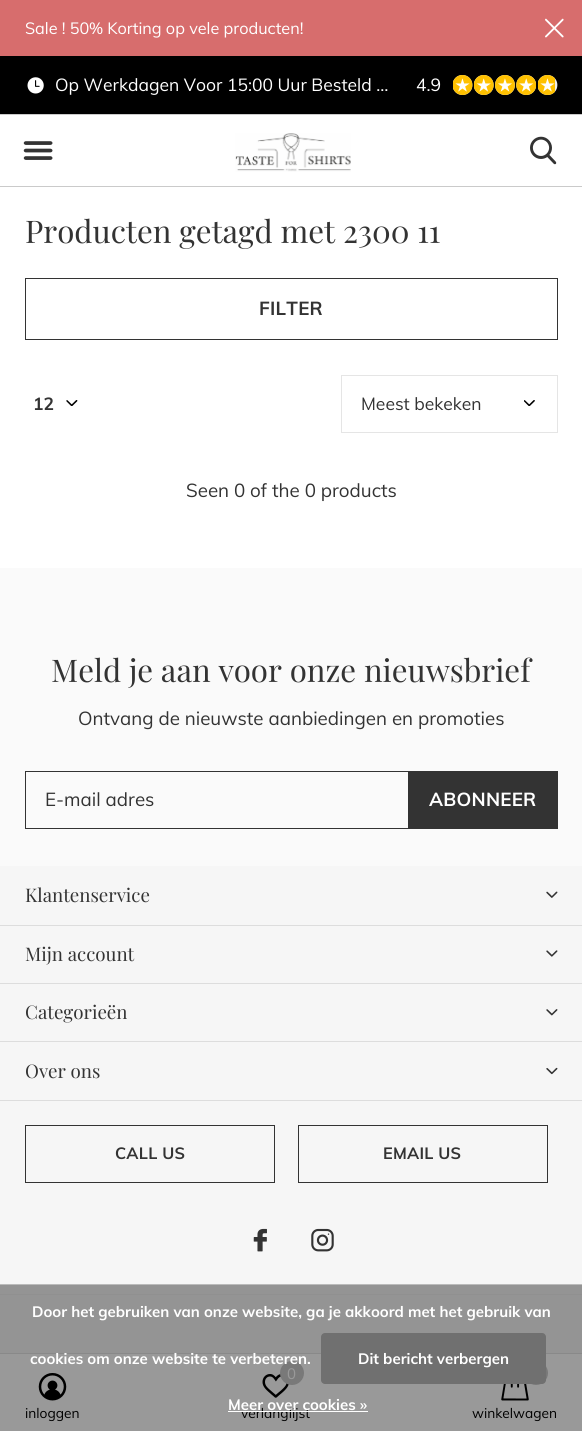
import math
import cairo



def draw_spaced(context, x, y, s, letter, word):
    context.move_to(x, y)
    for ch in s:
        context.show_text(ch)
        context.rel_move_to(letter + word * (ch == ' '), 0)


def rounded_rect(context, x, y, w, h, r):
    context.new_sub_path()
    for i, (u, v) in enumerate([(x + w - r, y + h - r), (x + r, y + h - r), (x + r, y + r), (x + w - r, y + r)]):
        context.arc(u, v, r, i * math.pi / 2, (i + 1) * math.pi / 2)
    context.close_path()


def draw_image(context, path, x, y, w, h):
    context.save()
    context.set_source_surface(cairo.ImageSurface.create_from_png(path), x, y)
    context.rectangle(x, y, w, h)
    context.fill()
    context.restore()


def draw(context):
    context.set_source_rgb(1, 1, 1)
    context.paint()
    context.set_source_rgb(215 / 255, 109 / 255, 109 / 255)
    context.rectangle(0, 0, 582, 56)
    context.fill()
    draw_image(context, "images/1.png", 545, 18, 19, 20)
    context.set_source_rgb(0, 0, 0)
    context.rectangle(0, 56, 582, 58)
    context.fill()
    context.set_source_rgb(202 / 255, 202 / 255, 202 / 255)
    context.rectangle(0, 114, 582, 1)
    context.fill()
    draw_image(context, "images/2.png", 27, 77, 17, 17)
    draw_image(context, "images/3.png", 453, 75, 20, 20)
    draw_image(context, "images/4.png", 453, 75, 20, 20)
    draw_image(context, "images/5.png", 474, 75, 20, 20)
    draw_image(context, "images/6.png", 474, 75, 20, 20)
    draw_image(context, "images/7.png", 495, 75, 20, 20)
    draw_image(context, "images/8.png", 495, 75, 20, 20)
    draw_image(context, "images/9.png", 516, 75, 20, 20)
    draw_image(context, "images/10.png", 516, 75, 20, 20)
    draw_image(context, "images/3.png", 538, 75, 20, 20)
    draw_image(context, "images/11.png", 538, 75, 17, 20)
    draw_image(context, "images/12.png", 23, 141, 30, 19)
    draw_image(context, "images/13.png", 235, 133, 116, 39)
    draw_image(context, "images/14.png", 530, 136, 27, 29)
    context.rectangle(0, 186, 582, 1)
    context.fill()
    context.rectangle(25.5, 278.5, 532, 61)
    context.set_source_rgb(51 / 255, 51 / 255, 51 / 255)
    context.set_line_width(1)
    context.stroke()
    draw_image(context, "images/15.png", 66, 400, 12, 6)
    draw_image(context, "images/16.png", 524, 400, 11, 6)
    context.rectangle(341.5, 375.5, 216, 57)
    context.set_source_rgb(229 / 255, 229 / 255, 229 / 255)
    context.stroke()
    context.set_source_rgb(250 / 255, 250 / 255, 250 / 255)
    context.rectangle(0, 568, 582, 298)
    context.fill()
    context.rectangle(25.5, 771.5, 532, 57)
    context.set_source_rgb(51 / 255, 51 / 255, 51 / 255)
    context.stroke()
    context.rectangle(408, 772, 149, 56)
    context.fill()
    context.set_source_rgb(246 / 255, 246 / 255, 246 / 255)
    context.rectangle(0, 866, 582, 418)
    context.fill()
    context.set_source_rgb(148 / 255, 148 / 255, 148 / 255)
    context.rectangle(0, 1285, 582, 68)
    context.fill()
    draw_image(context, "images/17.png", 546, 891, 12, 7)
    context.set_source_rgb(221 / 255, 221 / 255, 221 / 255)
    context.rectangle(0, 925, 582, 1)
    context.fill()
    draw_image(context, "images/18.png", 546, 950, 12, 7)
    context.rectangle(0, 983, 582, 1)
    context.fill()
    draw_image(context, "images/19.png", 546, 1009, 12, 7)
    context.rectangle(0, 1041, 582, 1)
    context.fill()
    draw_image(context, "images/20.png", 546, 1067, 12, 8)
    context.rectangle(0, 1100, 582, 1)
    context.fill()
    context.rectangle(25.5, 1125.5, 249, 57)
    context.set_source_rgb(51 / 255, 51 / 255, 51 / 255)
    context.stroke()
    context.rectangle(298.5, 1125.5, 249, 57)
    context.stroke()
    draw_image(context, "images/21.png", 253, 1228, 14, 24)
    draw_image(context, "images/22.png", 311, 1228, 23, 24)
    context.set_source_rgb(144 / 255, 144 / 255, 144 / 255)
    context.rectangle(0, 1294, 582, 1)
    context.fill()
    context.set_source_rgb(153 / 255, 153 / 255, 153 / 255)
    context.rectangle(0, 1354, 582, 77)
    context.fill()
    context.set_source_rgb(137 / 255, 137 / 255, 137 / 255)
    context.rectangle(0, 1353, 582, 1)
    context.fill()
    draw_image(context, "images/23.png", 38, 1373, 29, 28)
    draw_image(context, "images/24.png", 262, 1374, 27, 24)
    context.set_source_rgb(121 / 255, 121 / 255, 121 / 255)
    context.arc(292, 1373, 12, 0, 2 * math.pi)
    context.fill()
    draw_image(context, "images/25.png", 501, 1384, 28, 17)
    context.arc(536, 1373, 12, 0, 2 * math.pi)
    context.fill()
    context.set_source_rgb(187 / 255, 187 / 255, 187 / 255)
    context.rectangle(0, 1284, 582, 1)
    context.fill()
    context.set_source_rgb(112 / 255, 112 / 255, 112 / 255)
    rounded_rect(context, 321, 1333, 225, 51, 4)
    context.fill()
    context.select_font_face("Muli")
    context.set_font_size(16.25)
    context.set_source_rgb(1, 1, 1)
    context.move_to(25, 34)
    context.show_text("Sale ! 50% Korting op vele producten!")
    context.set_font_size(17.5)
    context.move_to(55, 91)
    context.show_text("Op Werkdagen Voor 15:00 Uur Besteld …")
    context.move_to(416, 91)
    context.show_text("4.9")
    context.select_font_face("Playfair Display")
    context.set_font_size(31.25)
    context.set_source_rgb(51 / 255, 51 / 255, 51 / 255)
    context.move_to(25, 243)
    context.show_text("Producten getagd met 2300 11")
    context.select_font_face("Muli", cairo.FontSlant.NORMAL, cairo.FontWeight.BOLD)
    context.set_font_size(18.75)
    draw_spaced(context, 259, 315, "FILTER", 0.25, 0)
    context.set_font_size(17.5)
    context.move_to(33, 410)
    context.show_text("12")
    context.select_font_face("Muli")
    context.move_to(361, 410)
    context.show_text("Meest bekeken")
    context.set_font_size(18.75)
    context.move_to(186, 497)
    context.show_text("Seen 0 of the 0 products")
    context.select_font_face("Playfair Display")
    context.set_font_size(31.25)
    context.move_to(51, 682)
    context.show_text("Meld je aan voor onze nieuwsbrief")
    context.select_font_face("Muli")
    context.set_font_size(18.75)
    context.move_to(78, 725)
    context.show_text("Ontvang de nieuwste aanbiedingen en promoties")
    context.move_to(45, 806)
    context.show_text("E-mail adres")
    context.select_font_face("Muli", cairo.FontSlant.NORMAL, cairo.FontWeight.BOLD)
    context.set_source_rgb(1, 1, 1)
    draw_spaced(context, 429, 806, "ABONNEER", 0.25, 0)
    context.select_font_face("Playfair Display")
    context.set_source_rgb(51 / 255, 51 / 255, 51 / 255)
    context.move_to(25, 902)
    context.show_text("Klantenservice")
    context.move_to(25, 961)
    context.show_text("Mijn account")
    context.move_to(25, 1019)
    context.show_text("Categorieën")
    context.move_to(25, 1078)
    context.show_text("Over ons")
    context.select_font_face("Muli", cairo.FontSlant.NORMAL, cairo.FontWeight.BOLD)
    context.set_font_size(16.25)
    draw_spaced(context, 115, 1159, "CALL US", 0.25, 0)
    draw_spaced(context, 383, 1159, "EMAIL US", 0.25, 0)
    context.select_font_face("Muli")
    context.set_font_size(13.75)
    context.set_source_rgb(0, 0, 0)
    context.move_to(25, 1418)
    context.show_text("inloggen")
    context.set_font_size(15)
    context.set_source_rgb(153 / 255, 153 / 255, 153 / 255)
    context.move_to(287, 1379)
    context.show_text("0")
    context.set_font_size(13.75)
    context.set_source_rgb(0, 0, 0)
    context.move_to(241, 1418)
    context.show_text("verlanglijst")
    context.move_to(472, 1418)
    context.show_text("winkelwagen")
    context.select_font_face("Muli", cairo.FontSlant.NORMAL, cairo.FontWeight.BOLD)
    context.set_font_size(15)
    context.set_source_rgb(1, 1, 1)
    context.move_to(32, 1317)
    context.show_text("Door het gebruiken van onze website, ga je akkoord met het gebruik van")
    context.move_to(30, 1364)
    context.show_text("cookies om onze website te verbeteren.")
    context.move_to(358, 1364)
    context.show_text("Dit bericht verbergen")
    context.move_to(228, 1410)
    context.show_text("Meer over cookies »")
    context.rectangle(228, 1411, 140, 1)
    context.fill()


surface = cairo.ImageSurface(cairo.Format.RGB24, 582, 1431)
context = cairo.Context(surface)
options = cairo.FontOptions()
options.set_hint_metrics(cairo.HintMetrics.OFF)
options.set_hint_style(cairo.HintStyle.NONE)
context.set_font_options(options)
context.set_miter_limit(4)
draw(context)
surface.write_to_png("out.png")
